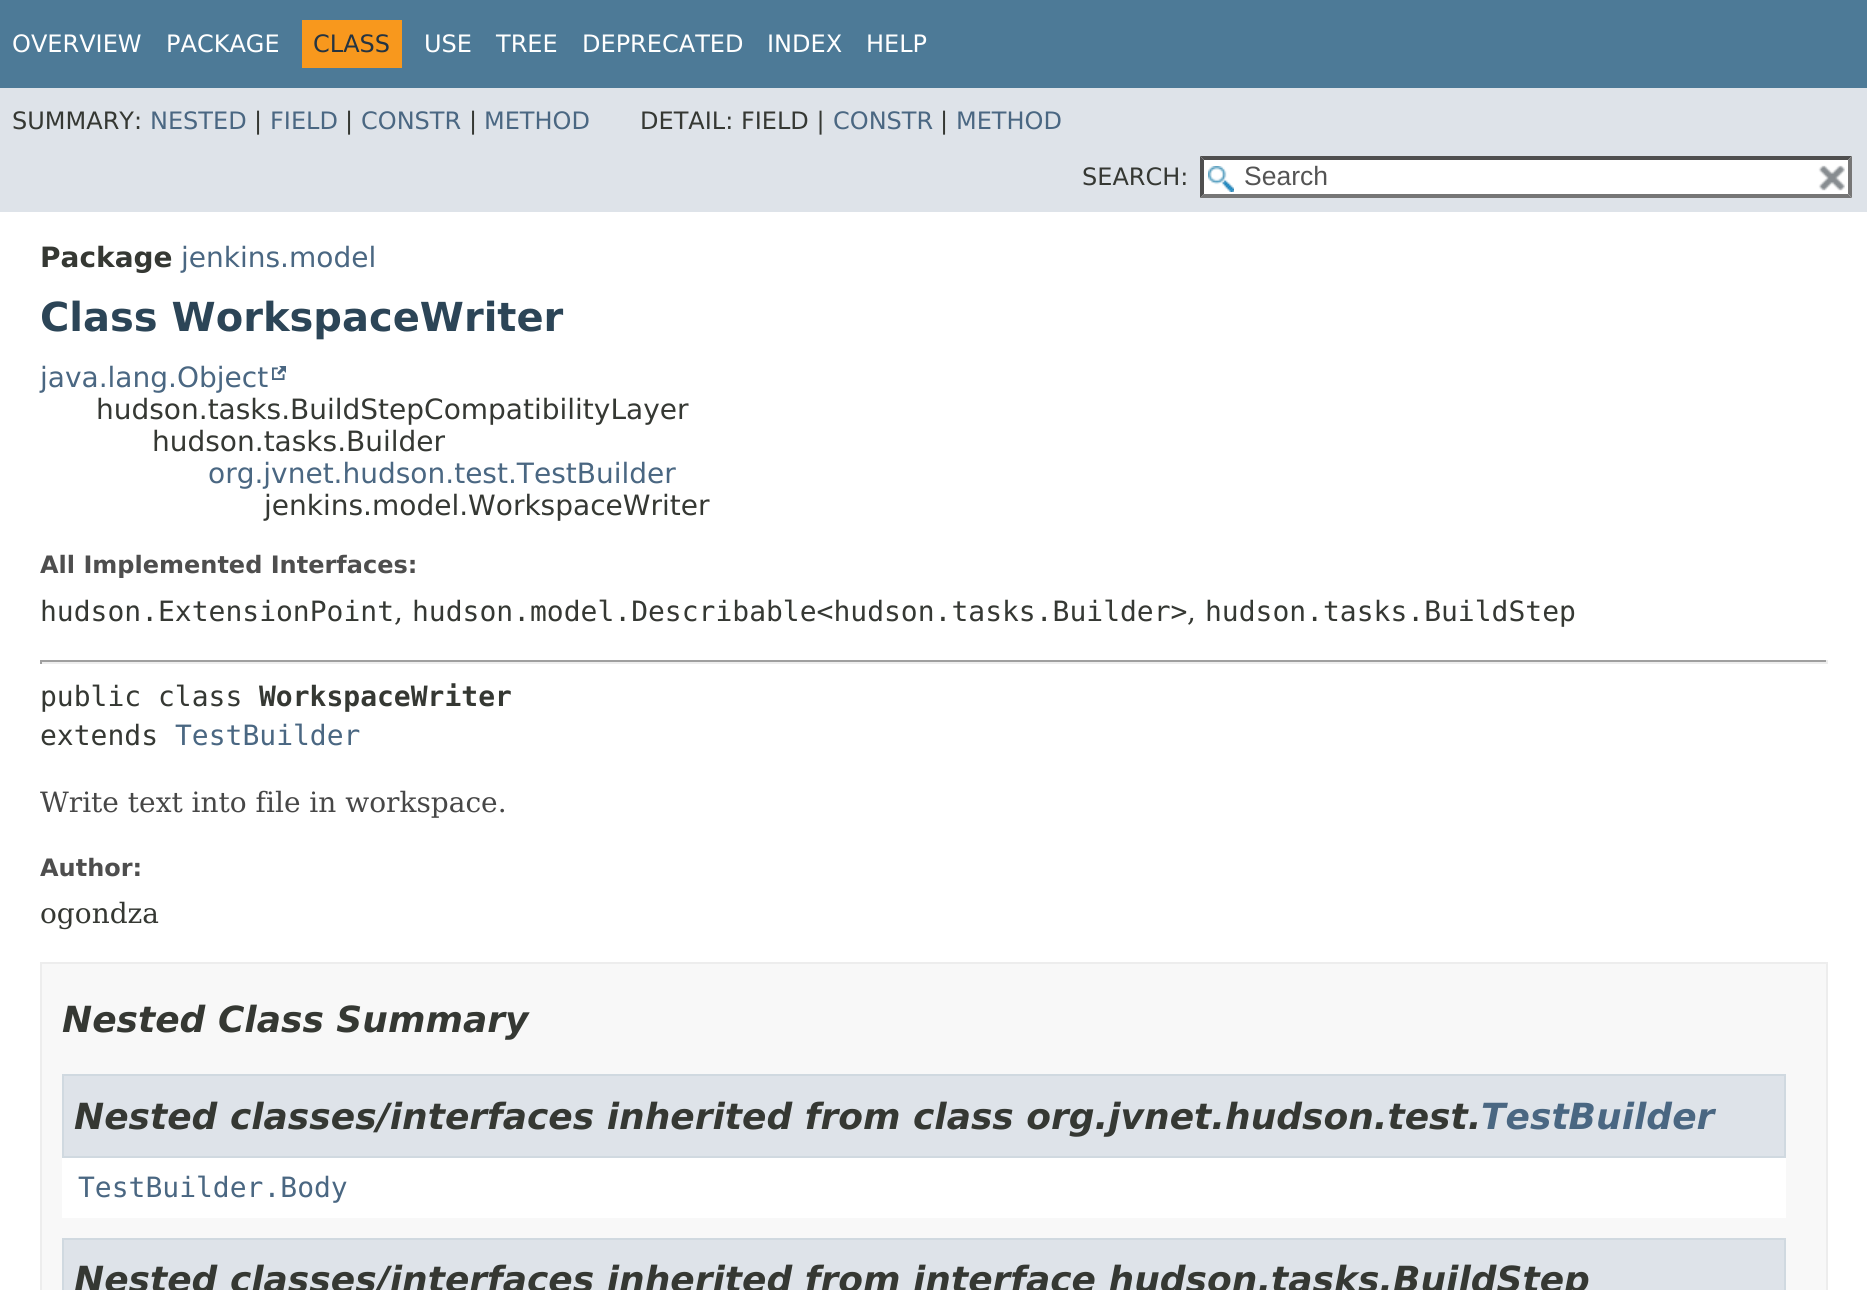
import math
import cairo



def draw_image(context, path, x, y, w, h):
    context.save()
    context.set_source_surface(cairo.ImageSurface.create_from_png(path), x, y)
    context.rectangle(x, y, w, h)
    context.fill()
    context.restore()


def draw(context):
    context.set_source_rgb(1, 1, 1)
    context.paint()
    context.set_source_rgb(77 / 255, 122 / 255, 151 / 255)
    context.rectangle(0, 0, 1867, 88)
    context.fill()
    context.set_source_rgb(248 / 255, 152 / 255, 29 / 255)
    context.rectangle(302, 20, 100, 48)
    context.fill()
    context.set_source_rgb(222 / 255, 227 / 255, 233 / 255)
    context.rectangle(0, 88, 1867, 124)
    context.fill()
    context.set_source_rgb(1, 1, 1)
    context.rectangle(1200, 156, 652, 42)
    context.fill()
    draw_image(context, "images/1.png", 1208, 166, 26, 26)
    context.set_source_rgb(79 / 255, 79 / 255, 79 / 255)
    context.new_path()
    context.move_to(1200, 156)
    context.line_to(1852, 156)
    context.line_to(1848, 160)
    context.line_to(1204, 160)
    context.close_path()
    context.fill()
    context.set_source_rgb(118 / 255, 118 / 255, 118 / 255)
    context.new_path()
    context.move_to(1852, 156)
    context.line_to(1852, 198)
    context.line_to(1848, 194)
    context.line_to(1848, 160)
    context.close_path()
    context.fill()
    context.new_path()
    context.move_to(1852, 198)
    context.line_to(1200, 198)
    context.line_to(1204, 194)
    context.line_to(1848, 194)
    context.close_path()
    context.fill()
    context.set_source_rgb(79 / 255, 79 / 255, 79 / 255)
    context.new_path()
    context.move_to(1200, 198)
    context.line_to(1200, 156)
    context.line_to(1204, 160)
    context.line_to(1204, 194)
    context.close_path()
    context.fill()
    draw_image(context, "images/2.png", 1818, 165, 27, 26)
    draw_image(context, "images/3.png", 272, 366, 14, 14)
    context.set_source_rgb(159 / 255, 159 / 255, 159 / 255)
    context.rectangle(40, 660, 1788, 2)
    context.fill()
    context.set_source_rgb(238 / 255, 238 / 255, 238 / 255)
    context.rectangle(1826, 660, 2, 4)
    context.fill()
    context.rectangle(40, 662, 1788, 2)
    context.fill()
    context.set_source_rgb(159 / 255, 159 / 255, 159 / 255)
    context.rectangle(40, 660, 2, 4)
    context.fill()
    context.set_source_rgb(248 / 255, 248 / 255, 248 / 255)
    context.rectangle(41, 963, 1786, 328)
    context.fill_preserve()
    context.set_source_rgb(237 / 255, 237 / 255, 237 / 255)
    context.stroke()
    context.set_source_rgb(1, 1, 1)
    context.rectangle(62, 1158, 1724, 60)
    context.fill()
    context.set_source_rgb(222 / 255, 227 / 255, 233 / 255)
    context.rectangle(63, 1075, 1722, 82)
    context.fill_preserve()
    context.set_source_rgb(208 / 255, 217 / 255, 224 / 255)
    context.stroke()
    context.set_source_rgb(222 / 255, 227 / 255, 233 / 255)
    context.rectangle(63, 1239, 1722, 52)
    context.fill_preserve()
    context.set_source_rgb(208 / 255, 217 / 255, 224 / 255)
    context.stroke()
    context.select_font_face("DejaVu Sans")
    context.set_font_size(24)
    context.set_source_rgb(1, 1, 1)
    context.move_to(12, 52)
    context.show_text("OVERVIEW")
    context.move_to(166, 52)
    context.show_text("PACKAGE")
    context.set_source_rgb(37 / 255, 52 / 255, 65 / 255)
    context.move_to(313, 52)
    context.show_text("CLASS")
    context.set_source_rgb(1, 1, 1)
    context.move_to(424, 52)
    context.show_text("USE")
    context.move_to(496, 52)
    context.show_text("TREE")
    context.move_to(582, 52)
    context.show_text("DEPRECATED")
    context.move_to(767, 52)
    context.show_text("INDEX")
    context.move_to(866, 52)
    context.show_text("HELP")
    context.set_source_rgb(53 / 255, 56 / 255, 51 / 255)
    context.move_to(12, 129)
    context.show_text("SUMMARY:")
    context.set_source_rgb(74 / 255, 103 / 255, 130 / 255)
    context.move_to(150, 129)
    context.show_text("NESTED")
    context.set_source_rgb(53 / 255, 56 / 255, 51 / 255)
    context.move_to(254, 129)
    context.show_text("|")
    context.set_source_rgb(74 / 255, 103 / 255, 130 / 255)
    context.move_to(270, 129)
    context.show_text("FIELD")
    context.set_source_rgb(53 / 255, 56 / 255, 51 / 255)
    context.move_to(345, 129)
    context.show_text("|")
    context.set_source_rgb(74 / 255, 103 / 255, 130 / 255)
    context.move_to(361, 129)
    context.show_text("CONSTR")
    context.set_source_rgb(53 / 255, 56 / 255, 51 / 255)
    context.move_to(469, 129)
    context.show_text("|")
    context.set_source_rgb(74 / 255, 103 / 255, 130 / 255)
    context.move_to(484, 129)
    context.show_text("METHOD")
    context.set_source_rgb(53 / 255, 56 / 255, 51 / 255)
    context.move_to(640, 129)
    context.show_text("DETAIL: FIELD |")
    context.set_source_rgb(74 / 255, 103 / 255, 130 / 255)
    context.move_to(833, 129)
    context.show_text("CONSTR")
    context.set_source_rgb(53 / 255, 56 / 255, 51 / 255)
    context.move_to(940, 129)
    context.show_text("|")
    context.set_source_rgb(74 / 255, 103 / 255, 130 / 255)
    context.move_to(956, 129)
    context.show_text("METHOD")
    context.set_source_rgb(53 / 255, 56 / 255, 51 / 255)
    context.move_to(1082, 185)
    context.show_text("SEARCH:")
    context.select_font_face("Liberation Sans")
    context.set_font_size(26.5)
    context.set_source_rgb(84 / 255, 84 / 255, 84 / 255)
    context.move_to(1244, 185)
    context.show_text("Search")
    context.select_font_face("DejaVu Sans", cairo.FontSlant.NORMAL, cairo.FontWeight.BOLD)
    context.set_font_size(28)
    context.set_source_rgb(53 / 255, 56 / 255, 51 / 255)
    context.move_to(40, 267)
    context.show_text("Package")
    context.select_font_face("DejaVu Sans")
    context.set_source_rgb(74 / 255, 103 / 255, 130 / 255)
    context.move_to(181, 267)
    context.show_text("jenkins.model")
    context.select_font_face("DejaVu Sans", cairo.FontSlant.NORMAL, cairo.FontWeight.BOLD)
    context.set_font_size(40)
    context.set_source_rgb(44 / 255, 69 / 255, 87 / 255)
    context.move_to(40, 331)
    context.show_text("Class WorkspaceWriter")
    context.select_font_face("DejaVu Sans")
    context.set_font_size(28)
    context.set_source_rgb(74 / 255, 103 / 255, 130 / 255)
    context.move_to(40, 387)
    context.show_text("java.lang.Object")
    context.set_source_rgb(53 / 255, 56 / 255, 51 / 255)
    context.move_to(96, 419)
    context.show_text("hudson.tasks.BuildStepCompatibilityLayer")
    context.move_to(152, 451)
    context.show_text("hudson.tasks.Builder")
    context.set_source_rgb(74 / 255, 103 / 255, 130 / 255)
    context.move_to(208, 483)
    context.show_text("org.jvnet.hudson.test.TestBuilder")
    context.set_source_rgb(53 / 255, 56 / 255, 51 / 255)
    context.move_to(264, 515)
    context.show_text("jenkins.model.WorkspaceWriter")
    context.select_font_face("DejaVu Sans", cairo.FontSlant.NORMAL, cairo.FontWeight.BOLD)
    context.set_font_size(24)
    context.set_source_rgb(78 / 255, 78 / 255, 78 / 255)
    context.move_to(40, 573)
    context.show_text("All Implemented Interfaces:")
    context.select_font_face("DejaVu Sans Mono")
    context.set_font_size(28)
    context.set_source_rgb(53 / 255, 56 / 255, 51 / 255)
    context.move_to(40, 621)
    context.show_text("hudson.ExtensionPoint")
    context.select_font_face("DejaVu Serif")
    context.move_to(394, 621)
    context.show_text(",")
    context.select_font_face("DejaVu Sans Mono")
    context.move_to(412, 621)
    context.show_text("hudson.model.Describable<hudson.tasks.Builder>")
    context.select_font_face("DejaVu Serif")
    context.move_to(1187, 621)
    context.show_text(",")
    context.select_font_face("DejaVu Sans Mono")
    context.move_to(1205, 621)
    context.show_text("hudson.tasks.BuildStep")
    context.move_to(40, 706)
    context.show_text("public class")
    context.select_font_face("DejaVu Sans Mono", cairo.FontSlant.NORMAL, cairo.FontWeight.BOLD)
    context.move_to(259, 706)
    context.show_text("WorkspaceWriter")
    context.select_font_face("DejaVu Sans Mono")
    context.move_to(40, 745)
    context.show_text("extends")
    context.set_source_rgb(74 / 255, 103 / 255, 130 / 255)
    context.move_to(175, 745)
    context.show_text("TestBuilder")
    context.select_font_face("DejaVu Serif")
    context.set_source_rgb(71 / 255, 71 / 255, 71 / 255)
    context.move_to(40, 812)
    context.show_text("Write text into file in workspace.")
    context.select_font_face("DejaVu Sans", cairo.FontSlant.NORMAL, cairo.FontWeight.BOLD)
    context.set_font_size(24)
    context.set_source_rgb(78 / 255, 78 / 255, 78 / 255)
    context.move_to(40, 876)
    context.show_text("Author:")
    context.select_font_face("DejaVu Serif")
    context.set_font_size(28)
    context.set_source_rgb(53 / 255, 56 / 255, 51 / 255)
    context.move_to(40, 923)
    context.show_text("ogondza")
    context.select_font_face("DejaVu Sans", cairo.FontSlant.ITALIC, cairo.FontWeight.BOLD)
    context.set_font_size(36)
    context.move_to(62, 1032)
    context.show_text("Nested Class Summary")
    context.move_to(74, 1129)
    context.show_text("Nested classes/interfaces inherited from class org.jvnet.hudson.test.")
    context.set_source_rgb(74 / 255, 103 / 255, 130 / 255)
    context.move_to(1481, 1129)
    context.show_text("TestBuilder")
    context.select_font_face("DejaVu Sans Mono")
    context.set_font_size(28)
    context.move_to(78, 1197)
    context.show_text("TestBuilder.Body")
    context.select_font_face("DejaVu Sans", cairo.FontSlant.ITALIC, cairo.FontWeight.BOLD)
    context.set_font_size(36)
    context.set_source_rgb(53 / 255, 56 / 255, 51 / 255)
    context.move_to(74, 1292)
    context.show_text("Nested classes/interfaces inherited from interface hudson.tasks.BuildStep")


surface = cairo.ImageSurface(cairo.Format.RGB24, 1867, 1290)
context = cairo.Context(surface)
options = cairo.FontOptions()
options.set_hint_metrics(cairo.HintMetrics.OFF)
options.set_hint_style(cairo.HintStyle.NONE)
context.set_font_options(options)
context.set_miter_limit(4)
draw(context)
surface.write_to_png("out.png")
